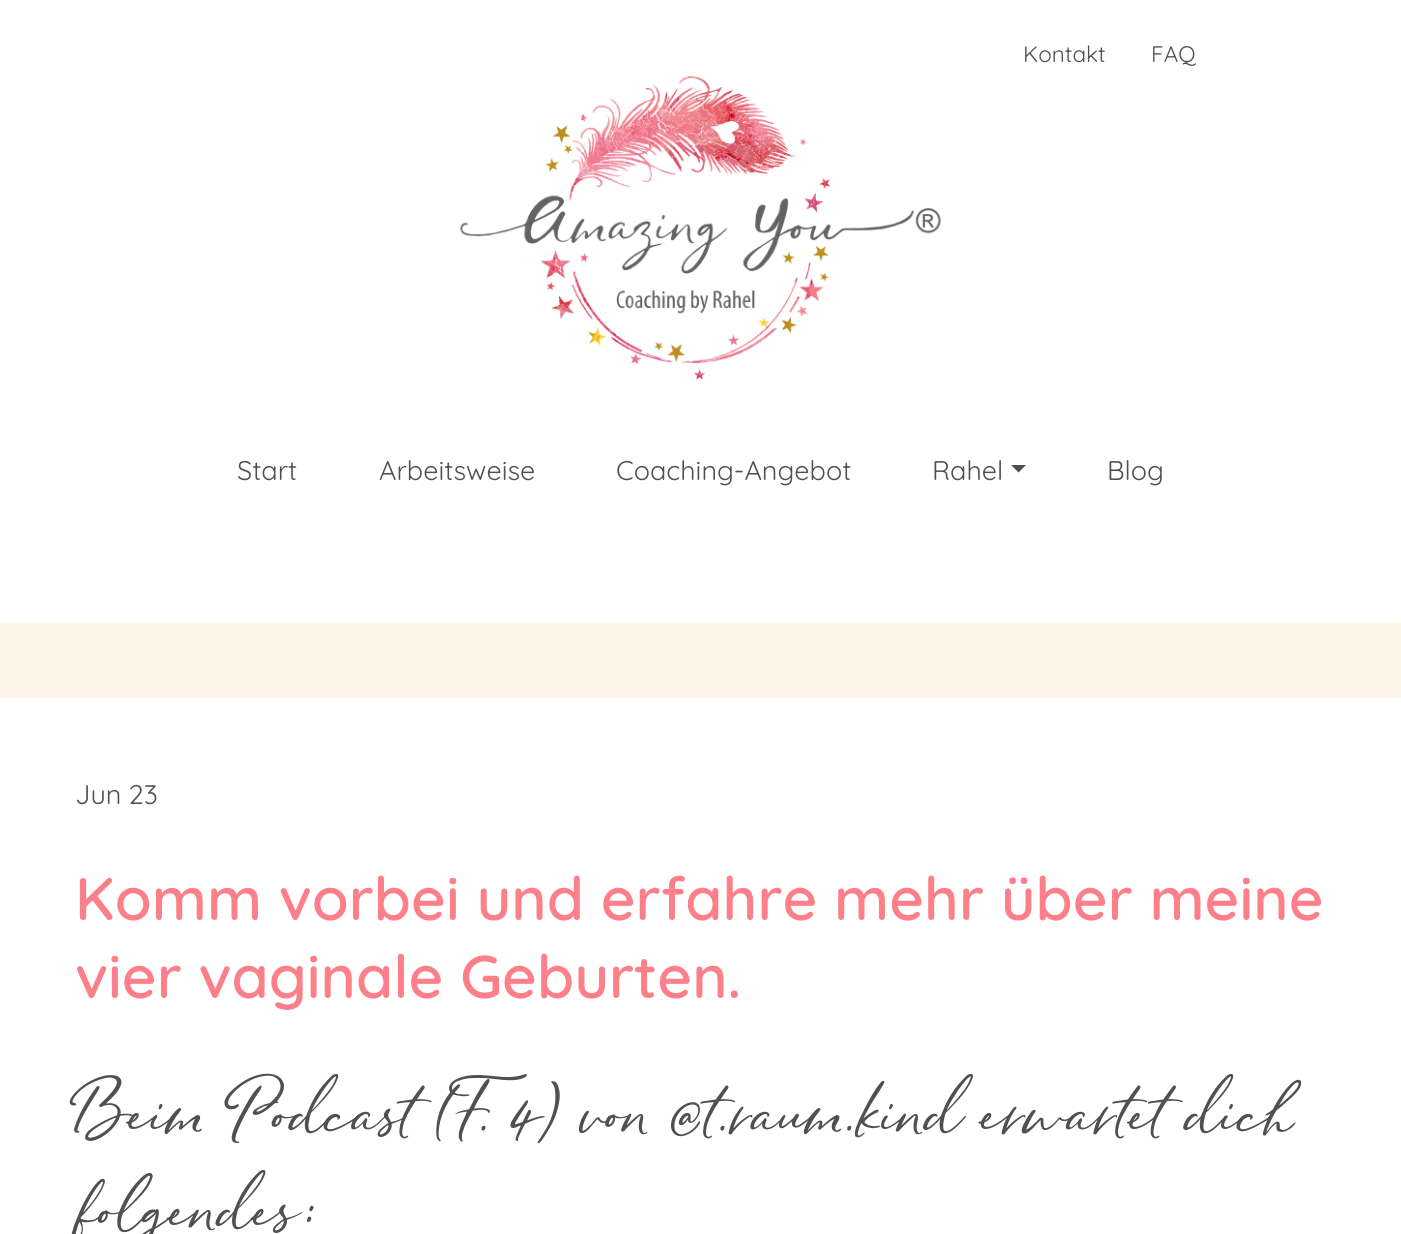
import math
import cairo



def draw_image(context, path, x, y, w, h):
    context.save()
    context.set_source_surface(cairo.ImageSurface.create_from_png(path), x, y)
    context.rectangle(x, y, w, h)
    context.fill()
    context.restore()


def draw(context):
    context.set_source_rgb(1, 1, 1)
    context.paint()
    draw_image(context, "images/1.png", 460, 76, 481, 304)
    context.set_source_rgb(80 / 255, 80 / 255, 80 / 255)
    context.new_path()
    context.move_to(1011, 465)
    context.line_to(1026, 465)
    context.line_to(1018.5, 472.5)
    context.close_path()
    context.fill()
    context.set_source_rgb(252 / 255, 244 / 255, 231 / 255)
    context.rectangle(0, 623, 1401, 75)
    context.fill()
    context.select_font_face("Quicksand Light")
    context.set_font_size(22.5)
    context.set_source_rgb(80 / 255, 80 / 255, 80 / 255)
    context.move_to(1023, 62)
    context.show_text("Kontakt")
    context.move_to(1151, 62)
    context.show_text("FAQ")
    context.set_font_size(27)
    context.move_to(237, 480)
    context.show_text("Start")
    context.move_to(379, 480)
    context.show_text("Arbeitsweise")
    context.move_to(616, 480)
    context.show_text("Coaching-Angebot")
    context.move_to(932, 480)
    context.show_text("Rahel")
    context.move_to(1107, 480)
    context.show_text("Blog")
    context.move_to(75, 804)
    context.show_text("Jun 23")
    context.select_font_face("Quicksand SemiBold")
    context.set_font_size(60)
    context.set_source_rgb(252 / 255, 127 / 255, 138 / 255)
    context.move_to(75, 920)
    context.show_text("Komm vorbei und erfahre mehr über meine")
    context.move_to(75, 998)
    context.show_text("vier vaginale Geburten.")
    context.select_font_face("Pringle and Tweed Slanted")
    context.set_source_rgb(80 / 255, 80 / 255, 80 / 255)
    context.move_to(75, 1132)
    context.show_text("Beim Podcast (F. 4) von @t.raum.kind erwartet dich")
    context.move_to(75, 1228)
    context.show_text("folgendes:")


surface = cairo.ImageSurface(cairo.Format.RGB24, 1401, 1234)
context = cairo.Context(surface)
options = cairo.FontOptions()
options.set_hint_metrics(cairo.HintMetrics.OFF)
options.set_hint_style(cairo.HintStyle.NONE)
context.set_font_options(options)
context.set_miter_limit(4)
draw(context)
surface.write_to_png("out.png")
